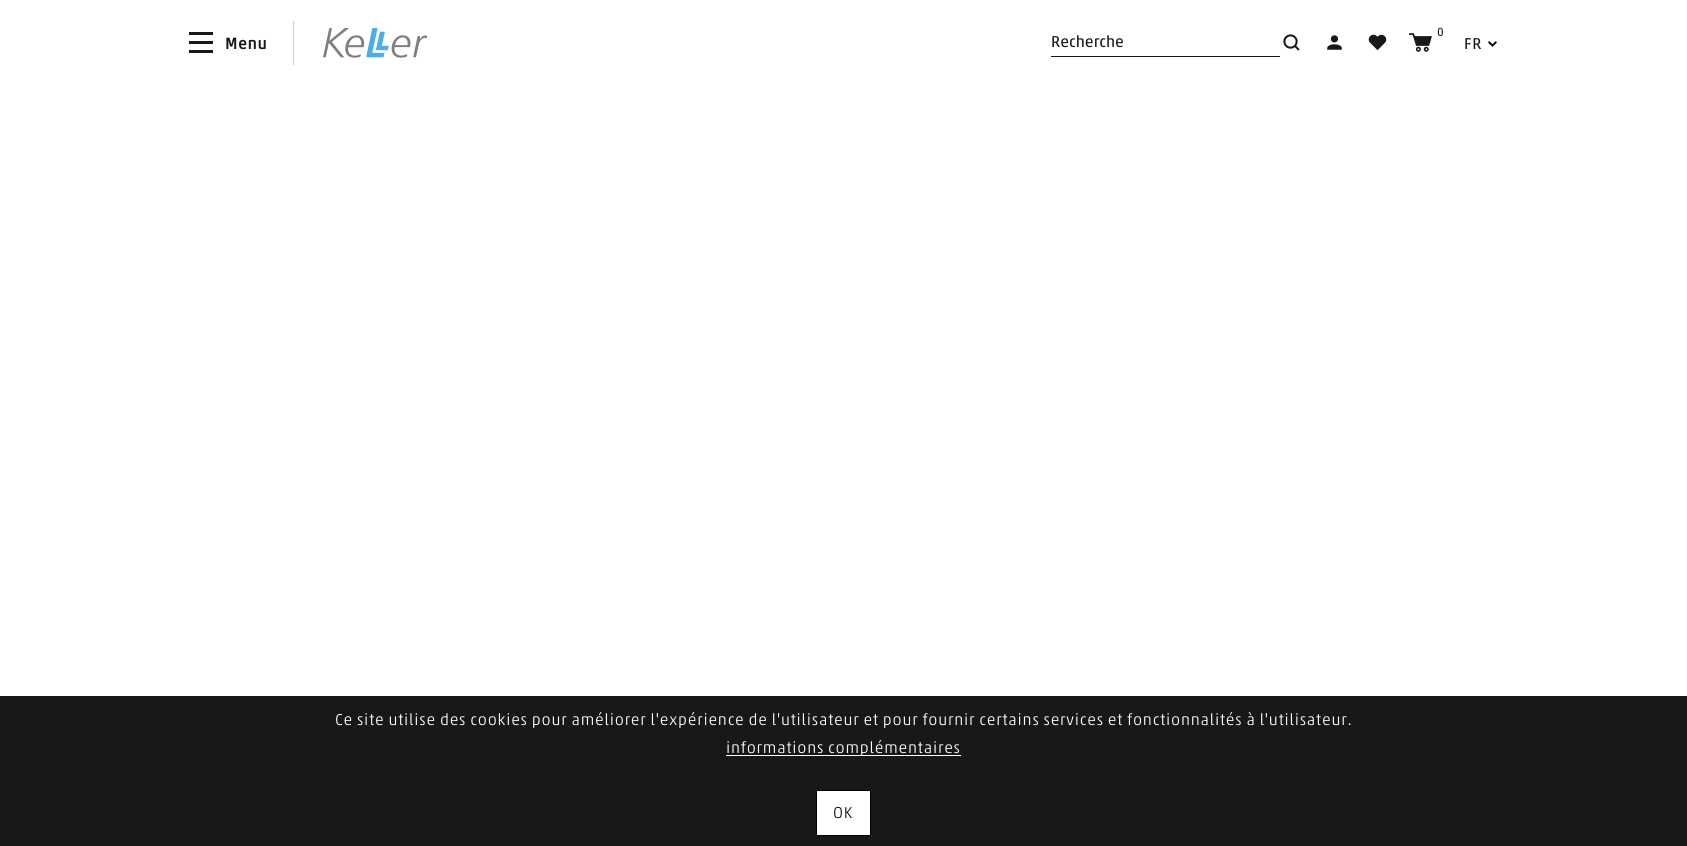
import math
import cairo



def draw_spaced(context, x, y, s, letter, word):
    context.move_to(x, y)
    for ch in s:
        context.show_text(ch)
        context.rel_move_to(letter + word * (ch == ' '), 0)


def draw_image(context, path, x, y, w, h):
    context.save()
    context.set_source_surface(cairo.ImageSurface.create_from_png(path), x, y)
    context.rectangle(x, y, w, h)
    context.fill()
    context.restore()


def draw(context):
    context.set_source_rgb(1, 1, 1)
    context.paint()
    context.set_source_rgb(24 / 255, 24 / 255, 24 / 255)
    context.rectangle(189, 32, 24, 3)
    context.fill()
    context.rectangle(189, 41, 24, 3)
    context.fill()
    context.rectangle(189, 50, 24, 3)
    context.fill()
    context.set_source_rgb(204 / 255, 204 / 255, 204 / 255)
    context.rectangle(293, 21, 1, 44)
    context.fill()
    draw_image(context, "images/1.png", 323, 28, 104, 30)
    draw_image(context, "images/2.png", 1409, 33, 23, 19)
    context.set_source_rgb(24 / 255, 24 / 255, 24 / 255)
    context.rectangle(1051, 56, 229, 1)
    context.fill()
    draw_image(context, "images/3.png", 1283, 34, 17, 17)
    draw_image(context, "images/4.png", 1327, 35, 15, 15)
    draw_image(context, "images/5.png", 1368, 34, 19, 17)
    draw_image(context, "images/6.png", 1488, 41, 9, 6)
    context.rectangle(0, 696, 1687, 150)
    context.fill()
    context.set_source_rgb(1, 1, 1)
    context.rectangle(726, 755, 235, 1)
    context.fill()
    context.rectangle(816.5, 790.5, 54, 45)
    context.fill_preserve()
    context.set_source_rgb(0, 0, 0)
    context.set_line_width(1)
    context.stroke()
    context.select_font_face("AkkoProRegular", cairo.FontSlant.NORMAL, cairo.FontWeight.BOLD)
    context.set_font_size(16)
    context.set_source_rgb(24 / 255, 24 / 255, 24 / 255)
    draw_spaced(context, 225, 49, "Menu", 0.8, 0)
    context.select_font_face("AkkoProRegular")
    context.set_font_size(12)
    draw_spaced(context, 1437, 36, "0", 0.8, 0)
    context.set_font_size(16)
    context.move_to(1051, 47)
    context.show_text("Recherche")
    draw_spaced(context, 1464, 49, "FR", 0.8, 0)
    context.select_font_face("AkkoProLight")
    context.set_source_rgb(1, 1, 1)
    draw_spaced(context, 335, 725, "Ce site utilise des cookies pour améliorer l'expérience de l'utilisateur et pour fournir certains services et fonctionnalités à l'utilisateur.", 0.8, 0)
    draw_spaced(context, 726, 753, "informations complémentaires", 0.8, 0)
    context.set_source_rgb(24 / 255, 24 / 255, 24 / 255)
    draw_spaced(context, 833, 818, "OK", 0.8, 0)


surface = cairo.ImageSurface(cairo.Format.RGB24, 1687, 846)
context = cairo.Context(surface)
options = cairo.FontOptions()
options.set_hint_metrics(cairo.HintMetrics.OFF)
options.set_hint_style(cairo.HintStyle.NONE)
context.set_font_options(options)
context.set_miter_limit(4)
draw(context)
surface.write_to_png("out.png")
